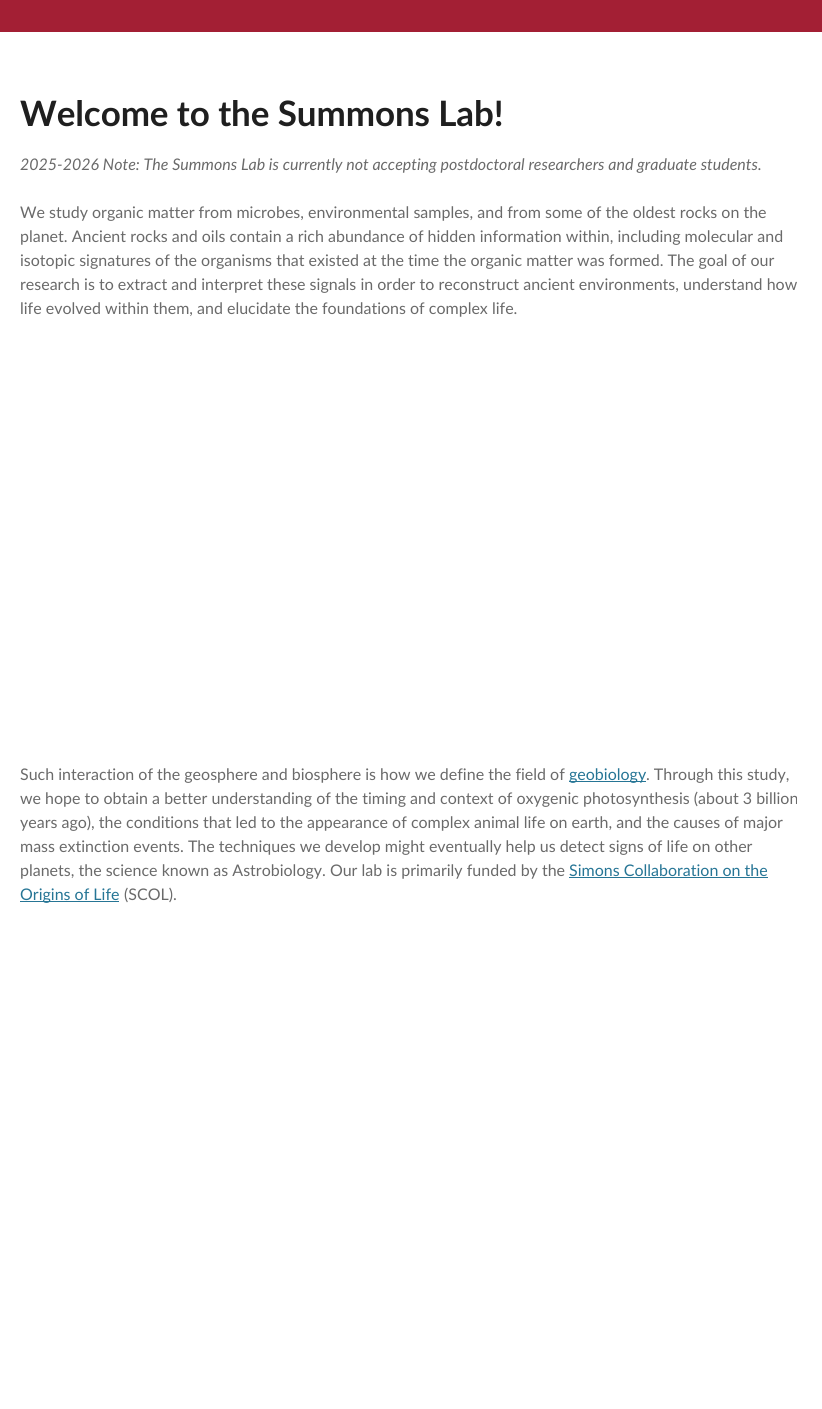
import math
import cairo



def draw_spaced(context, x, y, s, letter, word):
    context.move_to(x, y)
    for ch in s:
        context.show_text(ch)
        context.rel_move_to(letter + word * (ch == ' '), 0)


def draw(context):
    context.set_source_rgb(1, 1, 1)
    context.paint()
    context.set_source_rgb(163 / 255, 31 / 255, 52 / 255)
    context.rectangle(0, 0, 822, 32)
    context.fill()
    context.set_source_rgb(38 / 255, 117 / 255, 149 / 255)
    context.rectangle(569, 781, 77, 1)
    context.fill()
    context.rectangle(569, 877, 199, 1)
    context.fill()
    context.rectangle(20, 901, 99, 1)
    context.fill()
    context.select_font_face("Lato", cairo.FontSlant.NORMAL, cairo.FontWeight.BOLD)
    context.set_font_size(35)
    context.set_source_rgb(31 / 255, 31 / 255, 31 / 255)
    draw_spaced(context, 20, 126, "Welcome to the Summons Lab!", -0.1, 0)
    context.select_font_face("Lato", cairo.FontSlant.ITALIC)
    context.set_font_size(16)
    context.set_source_rgb(106 / 255, 106 / 255, 106 / 255)
    context.move_to(20, 170)
    context.show_text("2025-2026 Note: The Summons Lab is currently not accepting postdoctoral researchers and graduate students.")
    context.select_font_face("Lato")
    context.move_to(20, 218)
    context.show_text("We study organic matter from microbes, environmental samples, and from some of the oldest rocks on the")
    context.move_to(20, 242)
    context.show_text("planet. Ancient rocks and oils contain a rich abundance of hidden information within, including molecular and")
    context.move_to(20, 266)
    context.show_text("isotopic signatures of the organisms that existed at the time the organic matter was formed. The goal of our")
    context.move_to(20, 290)
    context.show_text("research is to extract and interpret these signals in order to reconstruct ancient environments, understand how")
    context.move_to(20, 314)
    context.show_text("life evolved within them, and elucidate the foundations of complex life.")
    context.move_to(20, 780)
    context.show_text("Such interaction of the geosphere and biosphere is how we define the field of")
    context.set_source_rgb(38 / 255, 117 / 255, 149 / 255)
    context.move_to(569, 780)
    context.show_text("geobiology")
    context.set_source_rgb(106 / 255, 106 / 255, 106 / 255)
    context.move_to(646, 780)
    context.show_text(". Through this study,")
    context.move_to(20, 804)
    context.show_text("we hope to obtain a better understanding of the timing and context of oxygenic photosynthesis (about 3 billion")
    context.move_to(20, 828)
    context.show_text("years ago), the conditions that led to the appearance of complex animal life on earth, and the causes of major")
    context.move_to(20, 852)
    context.show_text("mass extinction events. The techniques we develop might eventually help us detect signs of life on other")
    context.move_to(20, 876)
    context.show_text("planets, the science known as Astrobiology. Our lab is primarily funded by the")
    context.set_source_rgb(38 / 255, 117 / 255, 149 / 255)
    context.move_to(569, 876)
    context.show_text("Simons Collaboration on the")
    context.move_to(20, 900)
    context.show_text("Origins of Life")
    context.set_source_rgb(106 / 255, 106 / 255, 106 / 255)
    context.move_to(124, 900)
    context.show_text("(SCOL).")


surface = cairo.ImageSurface(cairo.Format.RGB24, 822, 1409)
context = cairo.Context(surface)
options = cairo.FontOptions()
options.set_hint_metrics(cairo.HintMetrics.OFF)
options.set_hint_style(cairo.HintStyle.NONE)
context.set_font_options(options)
context.set_miter_limit(4)
draw(context)
surface.write_to_png("out.png")
